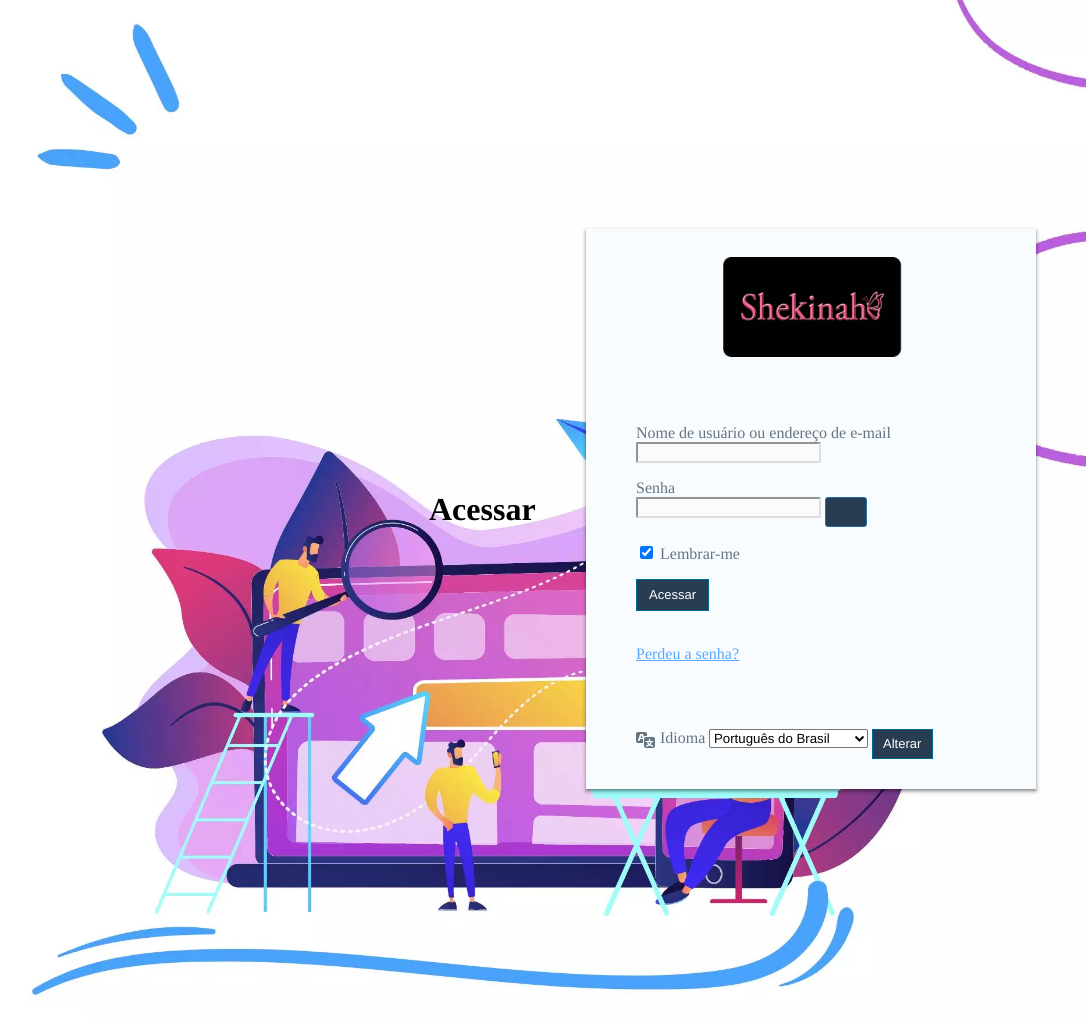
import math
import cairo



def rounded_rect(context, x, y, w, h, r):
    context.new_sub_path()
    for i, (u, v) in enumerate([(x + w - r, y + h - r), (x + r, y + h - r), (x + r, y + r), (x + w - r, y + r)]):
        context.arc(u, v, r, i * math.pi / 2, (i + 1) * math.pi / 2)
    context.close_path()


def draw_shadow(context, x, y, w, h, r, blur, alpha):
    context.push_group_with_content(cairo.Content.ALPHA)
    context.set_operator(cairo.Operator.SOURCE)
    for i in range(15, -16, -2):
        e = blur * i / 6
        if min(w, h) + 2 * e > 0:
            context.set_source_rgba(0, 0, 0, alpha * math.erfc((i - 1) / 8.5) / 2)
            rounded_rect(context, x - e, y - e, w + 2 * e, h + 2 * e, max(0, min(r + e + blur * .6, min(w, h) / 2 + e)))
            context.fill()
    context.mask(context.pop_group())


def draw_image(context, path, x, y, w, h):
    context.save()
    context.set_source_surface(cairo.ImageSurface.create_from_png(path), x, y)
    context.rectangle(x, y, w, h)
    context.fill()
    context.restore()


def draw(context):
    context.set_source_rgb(1, 1, 1)
    context.paint()
    draw_image(context, "images/1.png", 0, 0, 1086, 1018)
    context.set_source_rgb(0, 0, 0)
    draw_shadow(context, 586, 231, 450, 560, 0, 2, 0.5)
    context.set_source_rgb(249 / 255, 252 / 255, 1)
    context.rectangle(586, 229, 450, 560)
    context.fill()
    draw_image(context, "images/2.png", 723, 257, 179, 100)
    context.set_source_rgb(251 / 255, 251 / 255, 251 / 255)
    context.rectangle(636, 442, 185, 21)
    context.fill()
    context.set_source_rgb(147 / 255, 147 / 255, 147 / 255)
    context.new_path()
    context.move_to(636, 442)
    context.line_to(821, 442)
    context.line_to(819, 444)
    context.line_to(638, 444)
    context.close_path()
    context.fill()
    context.set_source_rgb(221 / 255, 221 / 255, 221 / 255)
    context.new_path()
    context.move_to(821, 442)
    context.line_to(821, 463)
    context.line_to(819, 461)
    context.line_to(819, 444)
    context.close_path()
    context.fill()
    context.new_path()
    context.move_to(821, 463)
    context.line_to(636, 463)
    context.line_to(638, 461)
    context.line_to(819, 461)
    context.close_path()
    context.fill()
    context.set_source_rgb(147 / 255, 147 / 255, 147 / 255)
    context.new_path()
    context.move_to(636, 463)
    context.line_to(636, 442)
    context.line_to(638, 444)
    context.line_to(638, 461)
    context.close_path()
    context.fill()
    context.set_source_rgb(251 / 255, 251 / 255, 251 / 255)
    context.rectangle(636, 497, 185, 21)
    context.fill()
    context.set_source_rgb(147 / 255, 147 / 255, 147 / 255)
    context.new_path()
    context.move_to(636, 497)
    context.line_to(821, 497)
    context.line_to(819, 499)
    context.line_to(638, 499)
    context.close_path()
    context.fill()
    context.set_source_rgb(221 / 255, 221 / 255, 221 / 255)
    context.new_path()
    context.move_to(821, 497)
    context.line_to(821, 518)
    context.line_to(819, 516)
    context.line_to(819, 499)
    context.close_path()
    context.fill()
    context.new_path()
    context.move_to(821, 518)
    context.line_to(636, 518)
    context.line_to(638, 516)
    context.line_to(819, 516)
    context.close_path()
    context.fill()
    context.set_source_rgb(147 / 255, 147 / 255, 147 / 255)
    context.new_path()
    context.move_to(636, 518)
    context.line_to(636, 497)
    context.line_to(638, 499)
    context.line_to(638, 516)
    context.close_path()
    context.fill()
    context.set_source_rgb(41 / 255, 61 / 255, 82 / 255)
    rounded_rect(context, 825.5, 497.5, 41, 29, 2.5)
    context.fill_preserve()
    context.set_source_rgb(34 / 255, 113 / 255, 177 / 255)
    context.set_line_width(1)
    context.stroke()
    context.set_source_rgb(0, 117 / 255, 1)
    rounded_rect(context, 640, 546, 13, 13, 2)
    context.fill()
    context.new_path()
    context.move_to(642.5, 552.5)
    context.line_to(645, 555)
    context.line_to(650.5, 548.5)
    context.set_source_rgb(1, 1, 1)
    context.set_line_width(2.1)
    context.stroke()
    context.set_source_rgb(41 / 255, 61 / 255, 82 / 255)
    context.rectangle(636.5, 579.5, 72, 31)
    context.fill_preserve()
    context.set_source_rgb(0, 103 / 255, 153 / 255)
    context.set_line_width(1)
    context.stroke()
    context.set_source_rgb(86 / 255, 167 / 255, 253 / 255)
    context.rectangle(636, 660, 103, 1)
    context.fill()
    draw_image(context, "images/3.png", 636, 732, 19, 16)
    context.set_source_rgb(1, 1, 1)
    rounded_rect(context, 709.5, 729.5, 158, 18, 1.5)
    context.fill_preserve()
    context.set_source_rgb(118 / 255, 118 / 255, 118 / 255)
    context.stroke()
    context.new_path()
    context.move_to(855.5, 736.5)
    context.line_to(859.5, 740.5)
    context.line_to(863.5, 736.5)
    context.set_source_rgb(0, 0, 0)
    context.set_line_width(2)
    context.stroke()
    context.set_source_rgb(41 / 255, 61 / 255, 82 / 255)
    context.rectangle(872.5, 729.5, 60, 29)
    context.fill_preserve()
    context.set_source_rgb(0, 103 / 255, 153 / 255)
    context.set_line_width(1)
    context.stroke()
    context.select_font_face("Liberation Serif", cairo.FontSlant.NORMAL, cairo.FontWeight.BOLD)
    context.set_font_size(32)
    context.set_source_rgb(0, 0, 0)
    context.move_to(429, 520)
    context.show_text("Acessar")
    context.select_font_face("Liberation Serif")
    context.set_font_size(16)
    context.set_source_rgb(99 / 255, 115 / 255, 129 / 255)
    context.move_to(636, 438)
    context.show_text("Nome de usuário ou endereço de e-mail")
    context.move_to(636, 493)
    context.show_text("Senha")
    context.move_to(660, 559)
    context.show_text("Lembrar-me")
    context.select_font_face("Liberation Sans")
    context.set_font_size(13)
    context.set_source_rgb(1, 1, 1)
    context.move_to(649, 599)
    context.show_text("Acessar")
    context.select_font_face("Liberation Serif")
    context.set_font_size(16)
    context.set_source_rgb(86 / 255, 167 / 255, 253 / 255)
    context.move_to(636, 659)
    context.show_text("Perdeu a senha?")
    context.set_source_rgb(99 / 255, 115 / 255, 129 / 255)
    context.move_to(660, 743)
    context.show_text("Idioma")
    context.select_font_face("Liberation Sans")
    context.set_font_size(13.25)
    context.set_source_rgb(0, 0, 0)
    context.move_to(714, 743)
    context.show_text("Português do Brasil")
    context.set_font_size(13)
    context.set_source_rgb(1, 1, 1)
    context.move_to(883, 748)
    context.show_text("Alterar")


surface = cairo.ImageSurface(cairo.Format.RGB24, 1086, 1018)
context = cairo.Context(surface)
options = cairo.FontOptions()
options.set_hint_metrics(cairo.HintMetrics.OFF)
options.set_hint_style(cairo.HintStyle.NONE)
context.set_font_options(options)
context.set_miter_limit(4)
draw(context)
surface.write_to_png("out.png")
